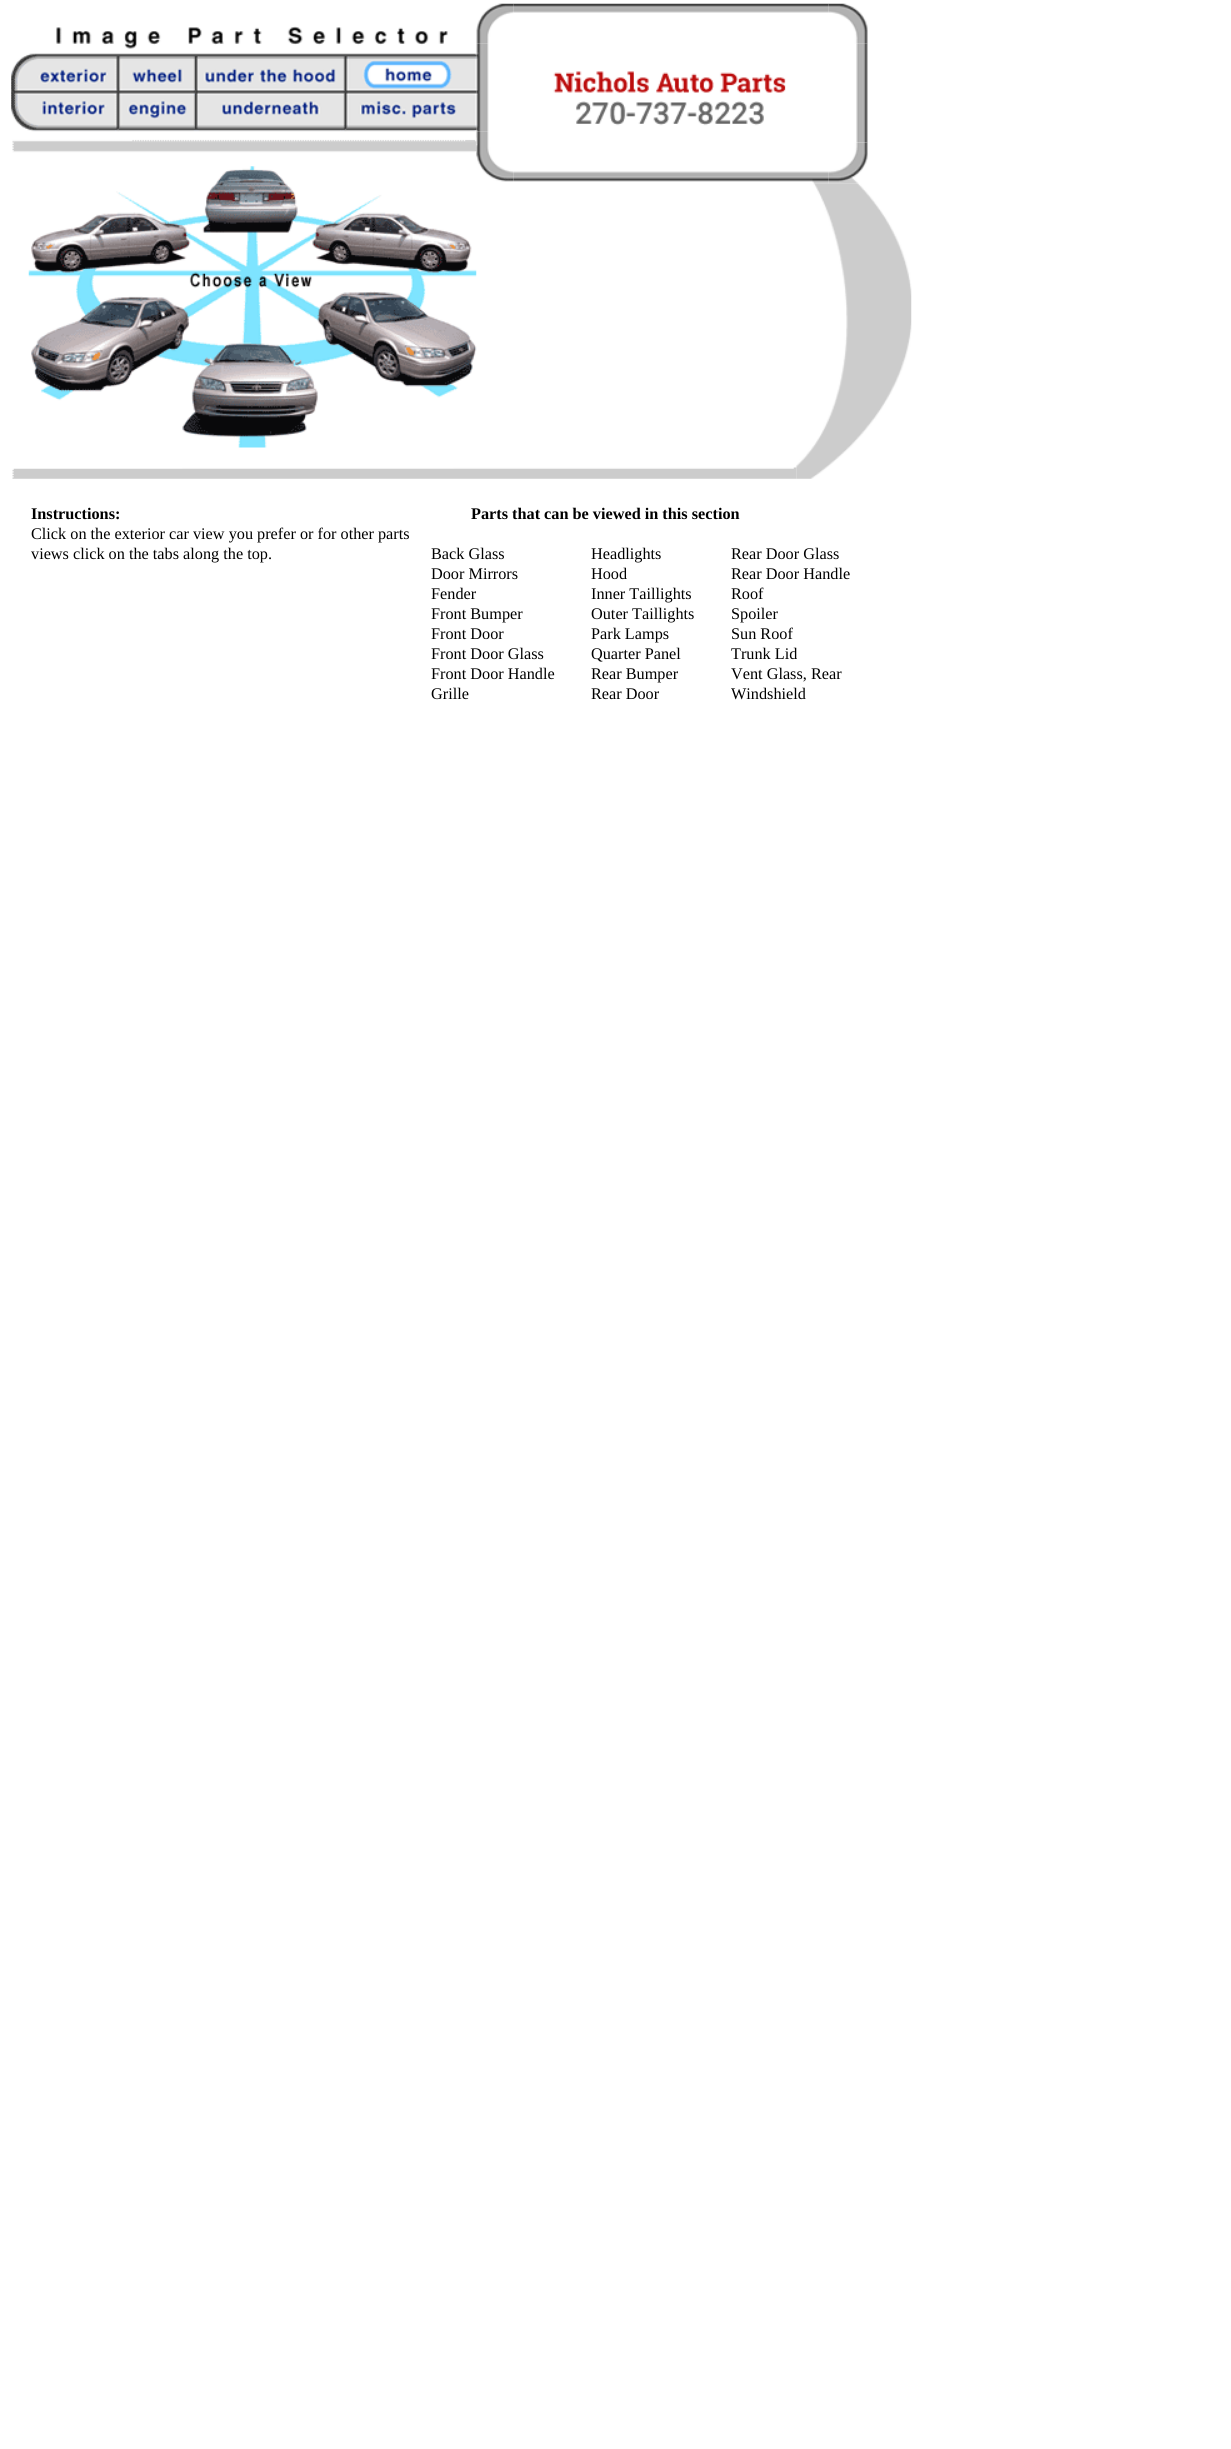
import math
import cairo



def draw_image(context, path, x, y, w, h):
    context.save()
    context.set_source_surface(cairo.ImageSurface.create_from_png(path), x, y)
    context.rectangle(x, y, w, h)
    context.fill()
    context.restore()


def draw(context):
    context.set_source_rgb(1, 1, 1)
    context.paint()
    draw_image(context, "images/1.png", 56, 26, 392, 23)
    draw_image(context, "images/2.png", 476, 3, 38, 41)
    draw_image(context, "images/3.png", 513, 3, 316, 10)
    draw_image(context, "images/4.png", 828, 3, 40, 41)
    draw_image(context, "images/6.png", 476, 43, 13, 89)
    draw_image(context, "images/5.png", 11, 52, 466, 80)
    draw_image(context, "images/7.png", 856, 43, 12, 100)
    draw_image(context, "images/8.png", 553, 71, 233, 55)
    draw_image(context, "images/10.png", 476, 131, 38, 51)
    draw_image(context, "images/9.png", 12, 137, 465, 16)
    draw_image(context, "images/11.png", 828, 142, 40, 42)
    draw_image(context, "images/12.png", 28, 166, 449, 282)
    draw_image(context, "images/13.png", 513, 171, 316, 13)
    draw_image(context, "images/15.png", 796, 183, 116, 296)
    draw_image(context, "images/14.png", 12, 466, 785, 13)
    context.select_font_face("Liberation Serif", cairo.FontSlant.NORMAL, cairo.FontWeight.BOLD)
    context.set_font_size(16.25)
    context.set_source_rgb(0, 0, 0)
    context.move_to(31, 519)
    context.show_text("Instructions:")
    context.select_font_face("Liberation Serif")
    context.move_to(31, 539)
    context.show_text("Click on the exterior car view you prefer or for other parts")
    context.move_to(31, 559)
    context.show_text("views click on the tabs along the top.")
    context.select_font_face("Liberation Serif", cairo.FontSlant.NORMAL, cairo.FontWeight.BOLD)
    context.move_to(471, 519)
    context.show_text("Parts that can be viewed in this section")
    context.select_font_face("Liberation Serif")
    context.move_to(431, 559)
    context.show_text("Back Glass")
    context.move_to(431, 579)
    context.show_text("Door Mirrors")
    context.move_to(431, 599)
    context.show_text("Fender")
    context.move_to(431, 619)
    context.show_text("Front Bumper")
    context.move_to(431, 639)
    context.show_text("Front Door")
    context.move_to(431, 659)
    context.show_text("Front Door Glass")
    context.move_to(431, 679)
    context.show_text("Front Door Handle")
    context.move_to(431, 699)
    context.show_text("Grille")
    context.move_to(591, 559)
    context.show_text("Headlights")
    context.move_to(591, 579)
    context.show_text("Hood")
    context.move_to(591, 599)
    context.show_text("Inner Taillights")
    context.move_to(591, 619)
    context.show_text("Outer Taillights")
    context.move_to(591, 639)
    context.show_text("Park Lamps")
    context.move_to(591, 659)
    context.show_text("Quarter Panel")
    context.move_to(591, 679)
    context.show_text("Rear Bumper")
    context.move_to(591, 699)
    context.show_text("Rear Door")
    context.move_to(731, 559)
    context.show_text("Rear Door Glass")
    context.move_to(731, 579)
    context.show_text("Rear Door Handle")
    context.move_to(731, 599)
    context.show_text("Roof")
    context.move_to(731, 619)
    context.show_text("Spoiler")
    context.move_to(731, 639)
    context.show_text("Sun Roof")
    context.move_to(731, 659)
    context.show_text("Trunk Lid")
    context.move_to(731, 679)
    context.show_text("Vent Glass, Rear")
    context.move_to(731, 699)
    context.show_text("Windshield")


surface = cairo.ImageSurface(cairo.Format.RGB24, 1231, 2449)
context = cairo.Context(surface)
options = cairo.FontOptions()
options.set_hint_metrics(cairo.HintMetrics.OFF)
options.set_hint_style(cairo.HintStyle.NONE)
context.set_font_options(options)
context.set_miter_limit(4)
draw(context)
surface.write_to_png("out.png")
